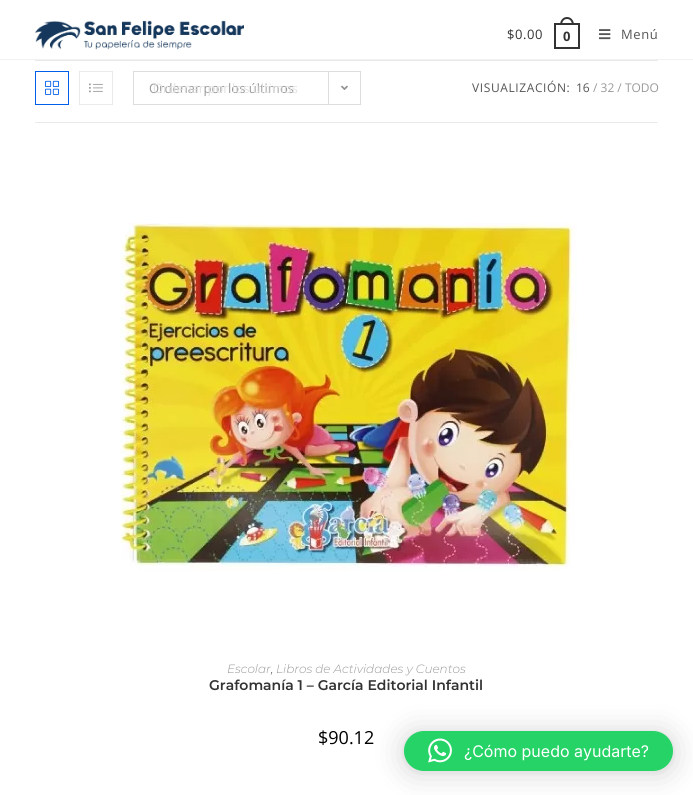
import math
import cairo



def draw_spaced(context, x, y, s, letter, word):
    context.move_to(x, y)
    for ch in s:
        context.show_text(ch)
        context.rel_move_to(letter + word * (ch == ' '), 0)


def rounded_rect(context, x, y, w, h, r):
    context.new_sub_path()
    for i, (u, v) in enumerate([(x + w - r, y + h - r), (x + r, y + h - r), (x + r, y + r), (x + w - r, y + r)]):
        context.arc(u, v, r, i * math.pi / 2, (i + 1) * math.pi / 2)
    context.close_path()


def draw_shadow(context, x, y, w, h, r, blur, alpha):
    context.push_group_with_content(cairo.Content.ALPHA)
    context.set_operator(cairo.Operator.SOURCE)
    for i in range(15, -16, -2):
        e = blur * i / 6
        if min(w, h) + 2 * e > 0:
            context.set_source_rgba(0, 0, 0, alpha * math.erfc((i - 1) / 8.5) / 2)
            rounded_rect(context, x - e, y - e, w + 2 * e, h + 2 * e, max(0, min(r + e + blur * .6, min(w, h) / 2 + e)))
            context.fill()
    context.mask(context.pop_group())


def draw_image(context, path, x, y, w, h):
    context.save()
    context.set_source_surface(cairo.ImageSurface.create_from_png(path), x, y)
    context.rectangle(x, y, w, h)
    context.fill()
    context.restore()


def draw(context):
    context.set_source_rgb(1, 1, 1)
    context.paint()
    context.set_source_rgb(241 / 255, 241 / 255, 241 / 255)
    context.rectangle(0, 59, 693, 1)
    context.fill()
    draw_image(context, "images/1.png", 35, 20, 209, 30)
    context.rectangle(555, 24, 24, 24)
    context.set_source_rgb(51 / 255, 51 / 255, 51 / 255)
    context.stroke()
    context.set_fill_rule(cairo.FillRule.EVEN_ODD)
    context.new_path()
    context.move_to(567, 17)
    context.curve_to(571.5, 17, 574, 21, 574, 25)
    context.line_to(560, 25)
    context.curve_to(560, 21, 562.5, 17, 567, 17)
    context.close_path()
    context.move_to(567, 19)
    context.curve_to(570.5, 19, 572, 22, 572, 25)
    context.line_to(562, 25)
    context.curve_to(562, 22, 563.5, 19, 567, 19)
    context.close_path()
    context.fill()
    draw_image(context, "images/2.png", 599, 29, 12, 11)
    context.set_source_rgb(234 / 255, 234 / 255, 234 / 255)
    context.rectangle(35, 60, 623, 1)
    context.fill()
    context.rectangle(35, 122, 623, 1)
    context.fill()
    context.rectangle(35.5, 71.5, 33, 33)
    context.set_source_rgb(0, 95 / 255, 234 / 255)
    context.set_line_width(1)
    context.stroke()
    draw_image(context, "images/3.png", 45, 80, 14, 15)
    context.rectangle(79.5, 71.5, 33, 33)
    context.set_source_rgb(234 / 255, 234 / 255, 234 / 255)
    context.stroke()
    draw_image(context, "images/4.png", 89, 83, 14, 10)
    context.rectangle(133.5, 71.5, 227, 33)
    context.set_source_rgb(221 / 255, 221 / 255, 221 / 255)
    context.stroke()
    context.rectangle(328, 72, 1, 32)
    context.fill()
    draw_image(context, "images/5.png", 341, 85, 7, 5)
    draw_image(context, "images/6.png", 120, 223, 457, 348)
    context.set_source_rgb(0, 0, 0)
    draw_shadow(context, 404, 733, 269, 40, 20, 16, 0.16)
    draw_shadow(context, 404, 732, 269, 40, 20, 3, 0.06)
    context.set_source_rgb(37 / 255, 211 / 255, 102 / 255)
    rounded_rect(context, 404, 731, 269, 40, 20)
    context.fill()
    draw_image(context, "images/7.png", 428, 738, 24, 25)
    context.select_font_face("Open Sans")
    context.set_font_size(13)
    context.set_source_rgb(51 / 255, 51 / 255, 51 / 255)
    draw_spaced(context, 507, 39, "$0.00", 0.6, 0)
    context.select_font_face("Open Sans", cairo.FontSlant.NORMAL, cairo.FontWeight.BOLD)
    draw_spaced(context, 563, 41, "0", 0.6, 0)
    context.select_font_face("Open Sans")
    context.set_source_rgb(85 / 255, 85 / 255, 85 / 255)
    draw_spaced(context, 621, 39, "Menú", 0.6, 0)
    context.set_source_rgb(153 / 255, 153 / 255, 153 / 255)
    context.move_to(149, 93)
    context.show_text("Ordenar por los últimos")
    context.set_source_rgb(226 / 255, 226 / 255, 226 / 255)
    context.move_to(153, 93)
    context.show_text("Ordenar por los últimos")
    context.set_font_size(12)
    context.set_source_rgb(85 / 255, 85 / 255, 85 / 255)
    draw_spaced(context, 472, 92, "VISUALIZACIÓN:", 0.6, 0)
    context.move_to(576, 92)
    context.show_text("16")
    context.set_source_rgb(153 / 255, 153 / 255, 153 / 255)
    context.move_to(593, 92)
    context.show_text("/ 32 / TODO")
    context.select_font_face("Montserrat Light", cairo.FontSlant.ITALIC)
    context.move_to(227, 673)
    context.show_text("Escolar")
    context.move_to(276, 673)
    context.show_text("Libros de Actividades y Cuentos")
    context.set_source_rgb(74 / 255, 74 / 255, 74 / 255)
    context.move_to(271, 673)
    context.show_text(",")
    context.select_font_face("Montserrat SemiBold")
    context.set_font_size(14)
    context.set_source_rgb(51 / 255, 51 / 255, 51 / 255)
    context.move_to(209, 690)
    context.show_text("Grafomanía 1 – García Editorial Infantil")
    context.select_font_face("Open Sans")
    context.set_font_size(18)
    context.set_source_rgb(0, 0, 0)
    context.move_to(318, 744)
    context.show_text("$90.12")
    context.select_font_face("Inter")
    context.set_font_size(16)
    context.set_source_rgb(1, 1, 1)
    context.move_to(464, 757)
    context.show_text("¿Cómo puedo ayudarte?")


surface = cairo.ImageSurface(cairo.Format.RGB24, 693, 795)
context = cairo.Context(surface)
options = cairo.FontOptions()
options.set_hint_metrics(cairo.HintMetrics.OFF)
options.set_hint_style(cairo.HintStyle.NONE)
context.set_font_options(options)
context.set_miter_limit(4)
draw(context)
surface.write_to_png("out.png")
